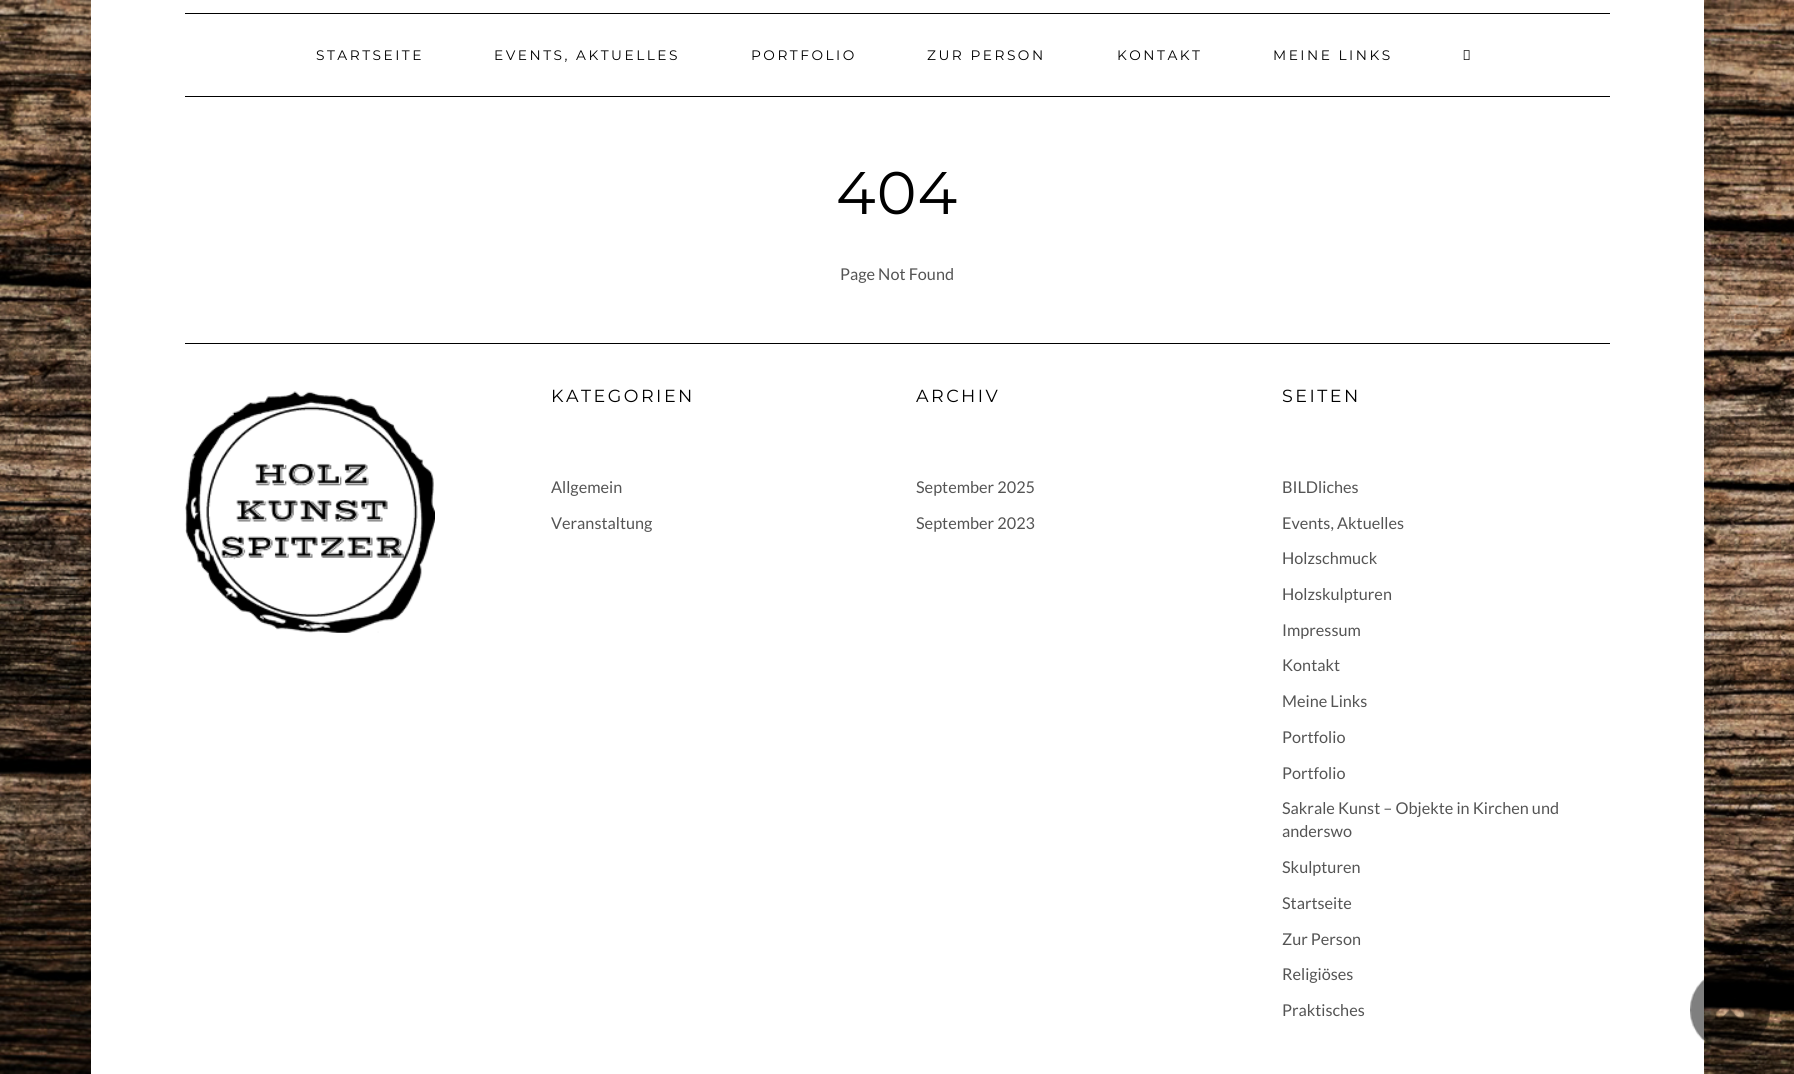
import math
import cairo



def draw_spaced(context, x, y, s, letter, word):
    context.move_to(x, y)
    for ch in s:
        context.show_text(ch)
        context.rel_move_to(letter + word * (ch == ' '), 0)


def rounded_rect(context, x, y, w, h, r):
    context.new_sub_path()
    for i, (u, v) in enumerate([(x + w - r, y + h - r), (x + r, y + h - r), (x + r, y + r), (x + w - r, y + r)]):
        context.arc(u, v, r, i * math.pi / 2, (i + 1) * math.pi / 2)
    context.close_path()


def draw_shadow(context, x, y, w, h, r, blur, alpha):
    context.push_group_with_content(cairo.Content.ALPHA)
    context.set_operator(cairo.Operator.SOURCE)
    for i in range(15, -16, -2):
        e = blur * i / 6
        if min(w, h) + 2 * e > 0:
            context.set_source_rgba(0, 0, 0, alpha * math.erfc((i - 1) / 8.5) / 2)
            rounded_rect(context, x - e, y - e, w + 2 * e, h + 2 * e, max(0, min(r + e + blur * .6, min(w, h) / 2 + e)))
            context.fill()
    context.mask(context.pop_group())


def draw_image(context, path, x, y, w, h):
    context.save()
    context.set_source_surface(cairo.ImageSurface.create_from_png(path), x, y)
    context.rectangle(x, y, w, h)
    context.fill()
    context.restore()


def draw(context):
    context.set_source_rgb(1, 1, 1)
    context.paint()
    draw_image(context, "images/1.png", 0, 0, 1794, 1074)
    context.set_source_rgb(0, 0, 0)
    draw_shadow(context, 91, -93, 1613, 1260, 0, 31, 0.06)
    context.set_source_rgb(1, 1, 1)
    context.rectangle(91, 0, 1613, 1074)
    context.fill()
    context.set_source_rgb(0, 0, 0)
    context.rectangle(185, 13, 1425, 1)
    context.fill()
    context.rectangle(185, 96, 1425, 1)
    context.fill()
    draw_image(context, "images/2.png", 1463, 50, 7, 10)
    context.rectangle(185, 343, 1425, 1)
    context.fill()
    draw_image(context, "images/3.png", 185, 391, 250, 242)
    draw_image(context, "images/4.png", 1690, 970, 80, 80)
    context.select_font_face("Montserrat")
    context.set_font_size(13.75)
    draw_spaced(context, 316, 60, "STARTSEITE", 2.5, 0)
    draw_spaced(context, 494, 60, "EVENTS, AKTUELLES", 2.5, 0)
    draw_spaced(context, 751, 60, "PORTFOLIO", 2.5, 0)
    draw_spaced(context, 927, 60, "ZUR PERSON", 2.5, 0)
    draw_spaced(context, 1117, 60, "KONTAKT", 2.5, 0)
    draw_spaced(context, 1273, 60, "MEINE LINKS", 2.5, 0)
    context.set_font_size(60)
    draw_spaced(context, 836, 214, "404", 1, 0)
    context.select_font_face("Lato")
    context.set_font_size(16.25)
    context.set_source_rgb(84 / 255, 84 / 255, 84 / 255)
    context.move_to(840, 280)
    context.show_text("Page Not Found")
    context.select_font_face("Montserrat")
    context.set_font_size(17.5)
    context.set_source_rgb(0, 0, 0)
    draw_spaced(context, 551, 402, "KATEGORIEN", 2.5, 0)
    context.select_font_face("Lato")
    context.set_font_size(16.25)
    context.set_source_rgb(84 / 255, 84 / 255, 84 / 255)
    context.move_to(551, 493)
    context.show_text("Allgemein")
    context.move_to(551, 529)
    context.show_text("Veranstaltung")
    context.select_font_face("Montserrat")
    context.set_font_size(17.5)
    context.set_source_rgb(0, 0, 0)
    draw_spaced(context, 916, 402, "ARCHIV", 2.5, 0)
    context.select_font_face("Lato")
    context.set_font_size(16.25)
    context.set_source_rgb(84 / 255, 84 / 255, 84 / 255)
    context.move_to(916, 493)
    context.show_text("September 2025")
    context.move_to(916, 529)
    context.show_text("September 2023")
    context.select_font_face("Montserrat")
    context.set_font_size(17.5)
    context.set_source_rgb(0, 0, 0)
    draw_spaced(context, 1282, 402, "SEITEN", 2.5, 0)
    context.select_font_face("Lato")
    context.set_font_size(16.25)
    context.set_source_rgb(84 / 255, 84 / 255, 84 / 255)
    context.move_to(1282, 493)
    context.show_text("BILDliches")
    context.move_to(1282, 529)
    context.show_text("Events, Aktuelles")
    context.move_to(1282, 564)
    context.show_text("Holzschmuck")
    context.move_to(1282, 600)
    context.show_text("Holzskulpturen")
    context.move_to(1282, 636)
    context.show_text("Impressum")
    context.move_to(1282, 671)
    context.show_text("Kontakt")
    context.move_to(1282, 707)
    context.show_text("Meine Links")
    context.move_to(1282, 743)
    context.show_text("Portfolio")
    context.move_to(1282, 779)
    context.show_text("Portfolio")
    context.move_to(1282, 814)
    context.show_text("Sakrale Kunst – Objekte in Kirchen und")
    context.move_to(1282, 837)
    context.show_text("anderswo")
    context.move_to(1282, 873)
    context.show_text("Skulpturen")
    context.move_to(1282, 909)
    context.show_text("Startseite")
    context.move_to(1282, 945)
    context.show_text("Zur Person")
    context.move_to(1282, 980)
    context.show_text("Religiöses")
    context.move_to(1282, 1016)
    context.show_text("Praktisches")


surface = cairo.ImageSurface(cairo.Format.RGB24, 1794, 1074)
context = cairo.Context(surface)
options = cairo.FontOptions()
options.set_hint_metrics(cairo.HintMetrics.OFF)
options.set_hint_style(cairo.HintStyle.NONE)
context.set_font_options(options)
context.set_miter_limit(4)
draw(context)
surface.write_to_png("out.png")
